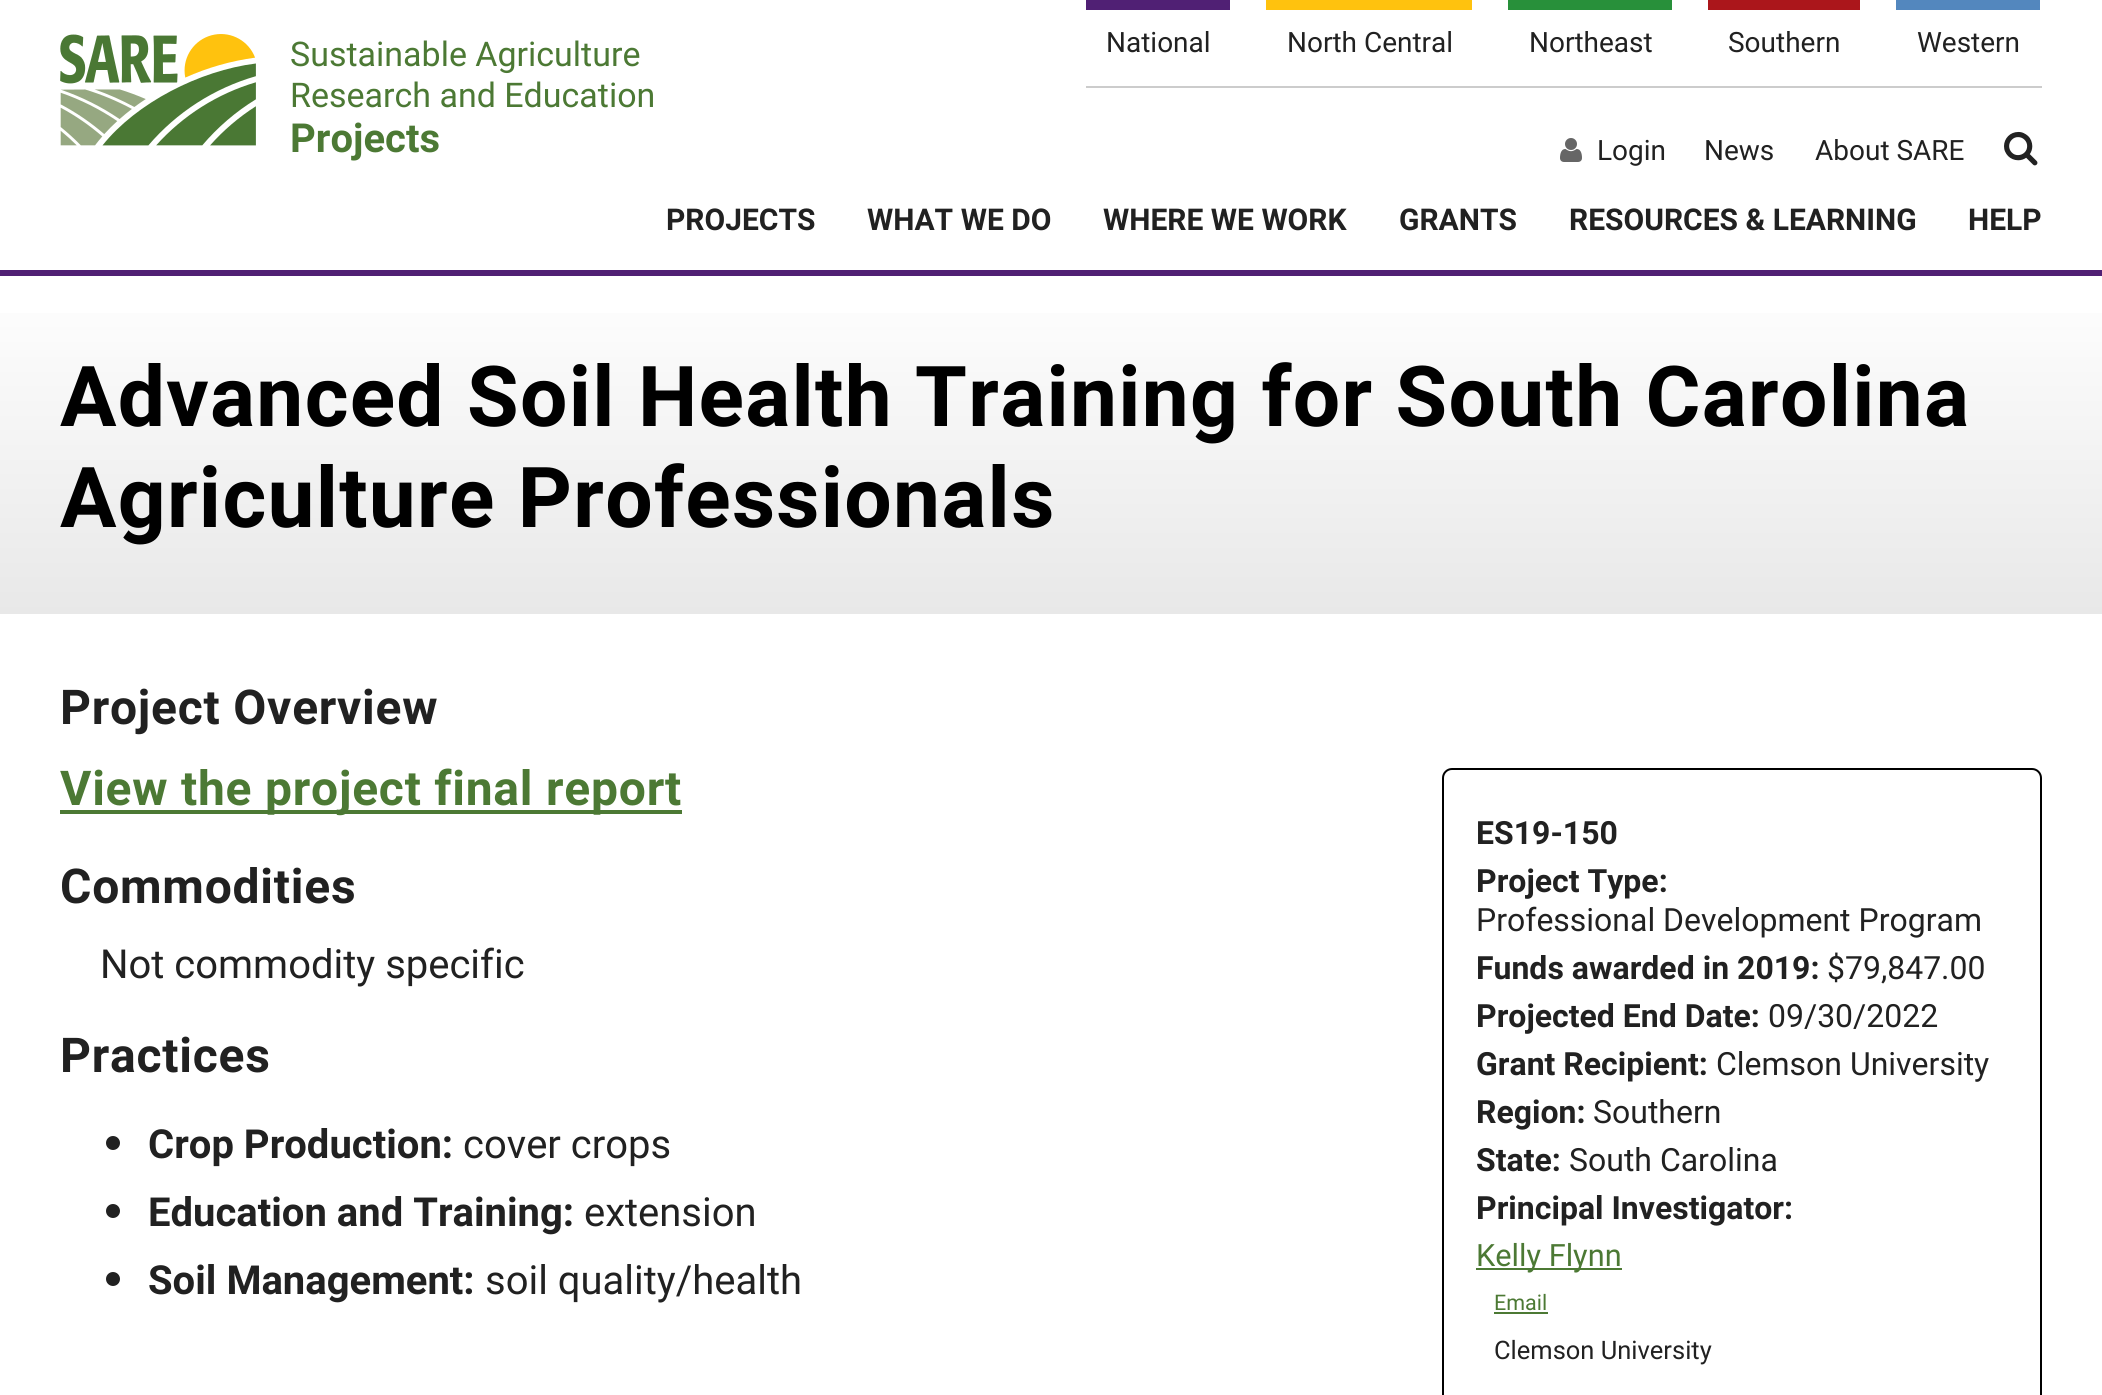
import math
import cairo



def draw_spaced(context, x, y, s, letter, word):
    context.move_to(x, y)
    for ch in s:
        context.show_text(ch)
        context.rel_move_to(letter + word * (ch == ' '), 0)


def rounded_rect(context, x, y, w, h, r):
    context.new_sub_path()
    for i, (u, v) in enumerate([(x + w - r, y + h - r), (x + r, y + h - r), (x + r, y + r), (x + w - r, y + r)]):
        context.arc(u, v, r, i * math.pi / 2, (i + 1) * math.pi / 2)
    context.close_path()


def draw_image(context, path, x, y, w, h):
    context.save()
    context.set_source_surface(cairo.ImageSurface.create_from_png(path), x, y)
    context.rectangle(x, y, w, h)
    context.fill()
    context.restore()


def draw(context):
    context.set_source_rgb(1, 1, 1)
    context.paint()
    context.set_source_rgb(80 / 255, 32 / 255, 116 / 255)
    context.rectangle(0, 270, 2102, 6)
    context.fill()
    context.set_source_rgb(204 / 255, 204 / 255, 204 / 255)
    context.rectangle(1086, 86, 956, 2)
    context.fill()
    context.set_source_rgb(80 / 255, 32 / 255, 116 / 255)
    context.rectangle(1086, 0, 144, 10)
    context.fill()
    context.set_source_rgb(1, 194 / 255, 14 / 255)
    context.rectangle(1266, 0, 206, 10)
    context.fill()
    context.set_source_rgb(40 / 255, 144 / 255, 58 / 255)
    context.rectangle(1508, 0, 164, 10)
    context.fill()
    context.set_source_rgb(171 / 255, 22 / 255, 27 / 255)
    context.rectangle(1708, 0, 152, 10)
    context.fill()
    context.set_source_rgb(83 / 255, 135 / 255, 190 / 255)
    context.rectangle(1896, 0, 144, 10)
    context.fill()
    draw_image(context, "images/1.png", 60, 34, 196, 112)
    draw_image(context, "images/2.png", 1560, 138, 22, 24)
    draw_image(context, "images/3.png", 2004, 131, 34, 35)
    gradient = cairo.LinearGradient(1051, 276, 1051, 614)
    gradient.add_color_stop_rgba(0, 1, 1, 1, 1)
    gradient.add_color_stop_rgba(1, 232 / 255, 232 / 255, 232 / 255, 1)
    context.set_source(gradient)
    context.rectangle(0, 313, 2102, 301)
    context.fill()
    rounded_rect(context, 1443, 769, 598, 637, 9)
    context.set_source_rgb(0, 0, 0)
    context.stroke()
    context.set_source_rgb(76 / 255, 121 / 255, 52 / 255)
    context.rectangle(1476, 1268, 146, 2)
    context.fill()
    context.rectangle(1494, 1312, 54, 2)
    context.fill()
    context.rectangle(60, 810, 622, 4)
    context.fill()
    context.set_source_rgb(33 / 255, 33 / 255, 33 / 255)
    context.arc(113, 1143, 7, 0, 2 * math.pi)
    context.fill()
    context.arc(113, 1211, 7, 0, 2 * math.pi)
    context.fill()
    context.arc(113, 1279, 7, 0, 2 * math.pi)
    context.fill()
    context.select_font_face("Roboto")
    context.set_font_size(28)
    context.move_to(1106, 52)
    context.show_text("National")
    context.move_to(1287, 52)
    context.show_text("North Central")
    context.move_to(1529, 52)
    context.show_text("Northeast")
    context.move_to(1728, 52)
    context.show_text("Southern")
    context.move_to(1917, 52)
    context.show_text("Western")
    context.set_font_size(34)
    context.set_source_rgb(76 / 255, 121 / 255, 52 / 255)
    context.move_to(290, 66)
    context.show_text("Sustainable Agriculture")
    context.move_to(290, 107)
    context.show_text("Research and Education")
    context.select_font_face("Roboto", cairo.FontSlant.NORMAL, cairo.FontWeight.BOLD)
    context.set_font_size(40)
    context.move_to(290, 152)
    context.show_text("Projects")
    context.select_font_face("Roboto")
    context.set_font_size(28)
    context.set_source_rgb(33 / 255, 33 / 255, 33 / 255)
    context.move_to(1597, 160)
    context.show_text("Login")
    context.move_to(1704, 160)
    context.show_text("News")
    context.move_to(1815, 160)
    context.show_text("About SARE")
    context.select_font_face("Roboto", cairo.FontSlant.NORMAL, cairo.FontWeight.BOLD)
    context.set_font_size(30)
    context.move_to(666, 230)
    context.show_text("PROJECTS")
    context.move_to(867, 230)
    context.show_text("WHAT WE DO")
    context.move_to(1103, 230)
    context.show_text("WHERE WE WORK")
    context.move_to(1399, 230)
    context.show_text("GRANTS")
    context.move_to(1569, 230)
    context.show_text("RESOURCES & LEARNING")
    context.move_to(1968, 230)
    context.show_text("HELP")
    context.set_font_size(84)
    context.set_source_rgb(0, 0, 0)
    draw_spaced(context, 60, 426, "Advanced Soil Health Training for South Carolina", 1.25, 0)
    draw_spaced(context, 60, 527, "Agriculture Professionals", 1.25, 0)
    context.set_font_size(48)
    context.set_source_rgb(33 / 255, 33 / 255, 33 / 255)
    draw_spaced(context, 60, 724, "Project Overview", 0.75, 0)
    context.set_font_size(32)
    context.move_to(1476, 844)
    context.show_text("ES19-150")
    context.move_to(1476, 892)
    context.show_text("Project Type:")
    context.select_font_face("Roboto")
    context.move_to(1476, 931)
    context.show_text("Professional Development Program")
    context.select_font_face("Roboto", cairo.FontSlant.NORMAL, cairo.FontWeight.BOLD)
    context.move_to(1476, 979)
    context.show_text("Funds awarded in 2019:")
    context.select_font_face("Roboto")
    context.move_to(1827, 979)
    context.show_text("$79,847.00")
    context.select_font_face("Roboto", cairo.FontSlant.NORMAL, cairo.FontWeight.BOLD)
    context.move_to(1476, 1027)
    context.show_text("Projected End Date:")
    context.select_font_face("Roboto")
    context.move_to(1768, 1027)
    context.show_text("09/30/2022")
    context.select_font_face("Roboto", cairo.FontSlant.NORMAL, cairo.FontWeight.BOLD)
    context.move_to(1476, 1075)
    context.show_text("Grant Recipient:")
    context.select_font_face("Roboto")
    context.move_to(1716, 1075)
    context.show_text("Clemson University")
    context.select_font_face("Roboto", cairo.FontSlant.NORMAL, cairo.FontWeight.BOLD)
    context.move_to(1476, 1123)
    context.show_text("Region:")
    context.select_font_face("Roboto")
    context.move_to(1593, 1123)
    context.show_text("Southern")
    context.select_font_face("Roboto", cairo.FontSlant.NORMAL, cairo.FontWeight.BOLD)
    context.move_to(1476, 1171)
    context.show_text("State:")
    context.select_font_face("Roboto")
    context.move_to(1569, 1171)
    context.show_text("South Carolina")
    context.select_font_face("Roboto", cairo.FontSlant.NORMAL, cairo.FontWeight.BOLD)
    context.move_to(1476, 1219)
    context.show_text("Principal Investigator:")
    context.select_font_face("Roboto")
    context.set_font_size(30.75)
    context.set_source_rgb(76 / 255, 121 / 255, 52 / 255)
    context.move_to(1476, 1266)
    context.show_text("Kelly Flynn")
    context.set_font_size(21.5)
    context.move_to(1494, 1310)
    context.show_text("Email")
    context.set_font_size(25.5)
    context.set_source_rgb(33 / 255, 33 / 255, 33 / 255)
    context.move_to(1494, 1359)
    context.show_text("Clemson University")
    context.select_font_face("Roboto", cairo.FontSlant.NORMAL, cairo.FontWeight.BOLD)
    context.set_font_size(48)
    context.set_source_rgb(76 / 255, 121 / 255, 52 / 255)
    draw_spaced(context, 60, 805, "View the project final report", 0.75, 0)
    context.set_source_rgb(33 / 255, 33 / 255, 33 / 255)
    draw_spaced(context, 60, 903, "Commodities", 0.75, 0)
    context.select_font_face("Roboto")
    context.set_font_size(40)
    context.move_to(100, 978)
    context.show_text("Not commodity specific")
    context.select_font_face("Roboto", cairo.FontSlant.NORMAL, cairo.FontWeight.BOLD)
    context.set_font_size(48)
    draw_spaced(context, 60, 1072, "Practices", 0.75, 0)
    context.set_font_size(40)
    context.move_to(148, 1158)
    context.show_text("Crop Production:")
    context.select_font_face("Roboto")
    context.move_to(463, 1158)
    context.show_text("cover crops")
    context.select_font_face("Roboto", cairo.FontSlant.NORMAL, cairo.FontWeight.BOLD)
    context.move_to(148, 1226)
    context.show_text("Education and Training:")
    context.select_font_face("Roboto")
    context.move_to(584, 1226)
    context.show_text("extension")
    context.select_font_face("Roboto", cairo.FontSlant.NORMAL, cairo.FontWeight.BOLD)
    context.move_to(148, 1294)
    context.show_text("Soil Management:")
    context.select_font_face("Roboto")
    context.move_to(485, 1294)
    context.show_text("soil quality/health")


surface = cairo.ImageSurface(cairo.Format.RGB24, 2102, 1395)
context = cairo.Context(surface)
options = cairo.FontOptions()
options.set_hint_metrics(cairo.HintMetrics.OFF)
options.set_hint_style(cairo.HintStyle.NONE)
context.set_font_options(options)
context.set_miter_limit(4)
draw(context)
surface.write_to_png("out.png")
